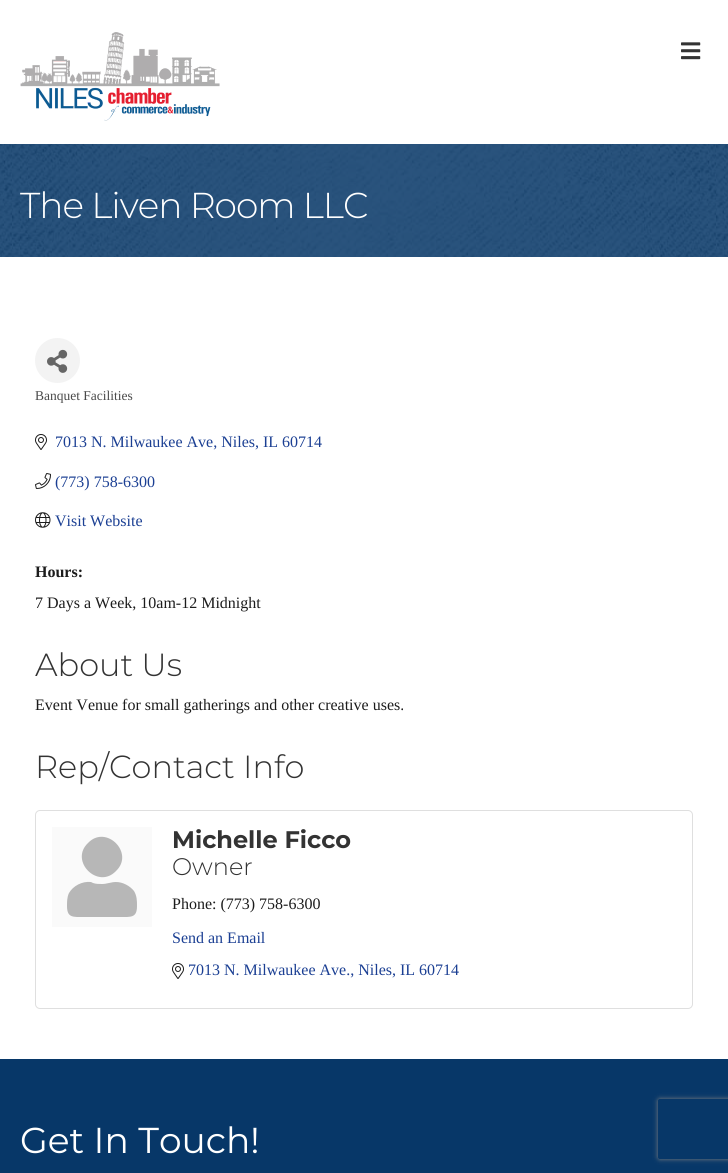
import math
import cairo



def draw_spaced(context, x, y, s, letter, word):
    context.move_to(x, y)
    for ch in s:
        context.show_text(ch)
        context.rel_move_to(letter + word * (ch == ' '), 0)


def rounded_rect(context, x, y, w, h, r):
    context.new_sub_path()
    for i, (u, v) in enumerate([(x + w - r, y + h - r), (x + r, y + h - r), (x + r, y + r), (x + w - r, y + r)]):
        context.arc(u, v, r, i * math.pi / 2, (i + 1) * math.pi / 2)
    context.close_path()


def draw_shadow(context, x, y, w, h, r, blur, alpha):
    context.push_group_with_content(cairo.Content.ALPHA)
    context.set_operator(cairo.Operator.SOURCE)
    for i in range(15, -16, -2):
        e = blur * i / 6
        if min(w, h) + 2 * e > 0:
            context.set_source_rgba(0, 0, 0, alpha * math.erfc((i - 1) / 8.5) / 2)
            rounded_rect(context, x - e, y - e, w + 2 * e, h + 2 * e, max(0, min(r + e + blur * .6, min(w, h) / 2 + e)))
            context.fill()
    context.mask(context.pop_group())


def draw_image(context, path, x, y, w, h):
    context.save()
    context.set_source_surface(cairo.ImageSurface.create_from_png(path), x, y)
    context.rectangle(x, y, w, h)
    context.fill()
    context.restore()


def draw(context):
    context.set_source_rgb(1, 1, 1)
    context.paint()
    draw_image(context, "images/1.png", 20, 32, 200, 89)
    draw_image(context, "images/2.png", 681, 42, 20, 18)
    draw_image(context, "images/3.png", 0, 144, 728, 113)
    context.set_source_rgb(243 / 255, 243 / 255, 243 / 255)
    context.arc(57.5, 360.5, 22.5, 0, 2 * math.pi)
    context.fill()
    draw_image(context, "images/4.png", 47, 349, 21, 24)
    draw_image(context, "images/5.png", 35, 434, 12, 16)
    draw_image(context, "images/6.png", 35, 473, 16, 16)
    draw_image(context, "images/7.png", 35, 512, 16, 16)
    rounded_rect(context, 35.5, 810.5, 657, 198, 4.5)
    context.set_source_rgb(223 / 255, 223 / 255, 223 / 255)
    context.set_line_width(1)
    context.stroke()
    context.set_source_rgb(250 / 255, 250 / 255, 250 / 255)
    context.rectangle(52, 827, 100, 100)
    context.fill()
    context.set_source_rgb(183 / 255, 183 / 255, 183 / 255)
    context.new_path()
    context.move_to(116, 871)
    context.curve_to(98, 890, 69, 861, 88, 843)
    context.curve_to(106, 824, 135, 853, 116, 871)
    context.close_path()
    context.move_to(116, 882)
    context.curve_to(123, 882, 130, 886, 134, 891)
    context.curve_to(137, 896, 137, 901, 137, 906)
    context.curve_to(137, 918, 131, 917, 120, 917)
    context.line_to(84, 917)
    context.curve_to(73, 917, 67, 918, 67, 906)
    context.curve_to(67, 902, 67, 897, 69, 893)
    context.curve_to(73, 886, 82, 881, 91, 882)
    context.line_to(93, 883)
    context.curve_to(96, 884, 99, 884, 102, 884)
    context.curve_to(107, 884, 111, 882, 116, 882)
    context.close_path()
    context.fill()
    draw_image(context, "images/5.png", 172, 963, 12, 16)
    context.set_source_rgb(7 / 255, 55 / 255, 104 / 255)
    context.rectangle(0, 1059, 728, 114)
    context.fill()
    context.save()
    context.set_fill_rule(cairo.FillRule.EVEN_ODD)
    context.new_path()
    context.move_to(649, 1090)
    context.line_to(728, 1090)
    context.line_to(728, 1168)
    context.line_to(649, 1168)
    context.close_path()
    context.move_to(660, 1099)
    context.line_to(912, 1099)
    context.curve_to(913, 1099, 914, 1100, 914, 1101)
    context.line_to(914, 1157)
    context.curve_to(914, 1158, 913, 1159, 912, 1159)
    context.line_to(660, 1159)
    context.curve_to(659, 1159, 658, 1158, 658, 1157)
    context.line_to(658, 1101)
    context.curve_to(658, 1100, 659, 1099, 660, 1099)
    context.close_path()
    context.clip()
    context.set_source_rgb(128 / 255, 128 / 255, 128 / 255)
    draw_shadow(context, 658, 1099, 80, 60, 2, 2.5, 1)
    context.restore()
    context.select_font_face("Montserrat Light")
    context.set_font_size(36)
    context.set_source_rgb(1, 1, 1)
    draw_spaced(context, 20, 218, "The Liven Room LLC", -1, 0)
    context.select_font_face("Liberation Serif")
    context.set_font_size(13.5)
    context.set_source_rgb(73 / 255, 73 / 255, 73 / 255)
    context.move_to(35, 400)
    context.show_text("Banquet Facilities")
    context.set_font_size(16)
    context.set_source_rgb(27 / 255, 63 / 255, 147 / 255)
    context.move_to(55, 447)
    context.show_text("7013 N. Milwaukee Ave, Niles, IL 60714")
    context.move_to(55, 487)
    context.show_text("(773) 758-6300")
    context.move_to(55, 526)
    context.show_text("Visit Website")
    context.select_font_face("Liberation Serif", cairo.FontSlant.NORMAL, cairo.FontWeight.BOLD)
    context.set_source_rgb(28 / 255, 28 / 255, 28 / 255)
    context.move_to(35, 577)
    context.show_text("Hours:")
    context.select_font_face("Liberation Serif")
    context.move_to(35, 608)
    context.show_text("7 Days a Week, 10am-12 Midnight")
    context.select_font_face("Montserrat Light")
    context.set_font_size(32)
    context.set_source_rgb(51 / 255, 51 / 255, 51 / 255)
    context.move_to(35, 676)
    context.show_text("About Us")
    context.select_font_face("Liberation Serif")
    context.set_font_size(16)
    context.set_source_rgb(28 / 255, 28 / 255, 28 / 255)
    context.move_to(35, 710)
    context.show_text("Event Venue for small gatherings and other creative uses.")
    context.select_font_face("Montserrat Light")
    context.set_font_size(32)
    context.set_source_rgb(51 / 255, 51 / 255, 51 / 255)
    context.move_to(35, 778)
    context.show_text("Rep/Contact Info")
    context.select_font_face("Montserrat", cairo.FontSlant.NORMAL, cairo.FontWeight.BOLD)
    context.set_font_size(24)
    context.move_to(172, 848)
    context.show_text("Michelle Ficco")
    context.select_font_face("Montserrat Light")
    context.move_to(172, 875)
    context.show_text("Owner")
    context.select_font_face("Liberation Serif")
    context.set_font_size(16)
    context.set_source_rgb(28 / 255, 28 / 255, 28 / 255)
    context.move_to(172, 909)
    context.show_text("Phone: (773) 758-6300")
    context.set_source_rgb(27 / 255, 63 / 255, 147 / 255)
    context.move_to(172, 943)
    context.show_text("Send an Email")
    context.move_to(188, 975)
    context.show_text("7013 N. Milwaukee Ave., Niles, IL 60714")
    context.select_font_face("Montserrat")
    context.set_font_size(36)
    context.set_source_rgb(1, 1, 1)
    context.move_to(20, 1153)
    context.show_text("Get In Touch!")


surface = cairo.ImageSurface(cairo.Format.RGB24, 728, 1173)
context = cairo.Context(surface)
options = cairo.FontOptions()
options.set_hint_metrics(cairo.HintMetrics.OFF)
options.set_hint_style(cairo.HintStyle.NONE)
context.set_font_options(options)
context.set_miter_limit(4)
draw(context)
surface.write_to_png("out.png")
